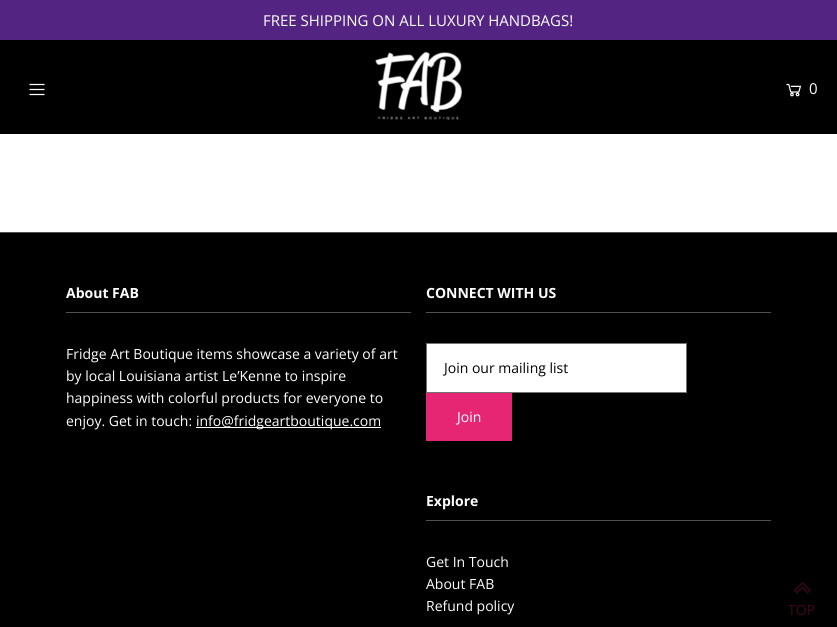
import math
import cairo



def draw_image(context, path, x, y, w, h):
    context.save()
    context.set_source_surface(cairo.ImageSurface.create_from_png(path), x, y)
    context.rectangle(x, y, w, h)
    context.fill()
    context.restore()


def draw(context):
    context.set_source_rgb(1, 1, 1)
    context.paint()
    context.set_source_rgb(0, 0, 0)
    context.rectangle(0, 40, 837, 94)
    context.fill()
    context.set_source_rgb(84 / 255, 36 / 255, 130 / 255)
    context.rectangle(0, 0, 837, 40)
    context.fill()
    draw_image(context, "images/1.png", 29, 83, 16, 13)
    draw_image(context, "images/2.png", 375, 52, 87, 68)
    draw_image(context, "images/3.png", 786, 83, 16, 14)
    context.set_source_rgb(0, 0, 0)
    context.rectangle(0, 233, 837, 394)
    context.fill()
    context.set_source_rgb(81 / 255, 81 / 255, 81 / 255)
    context.rectangle(0, 232, 837, 1)
    context.fill()
    context.rectangle(66, 312, 345, 1)
    context.fill()
    context.set_source_rgb(1, 1, 1)
    context.rectangle(196, 427, 185, 1)
    context.fill()
    context.set_source_rgb(81 / 255, 81 / 255, 81 / 255)
    context.rectangle(426, 312, 345, 1)
    context.fill()
    context.set_source_rgb(1, 1, 1)
    context.rectangle(426.5, 343.5, 260, 49)
    context.fill_preserve()
    context.set_source_rgb(114 / 255, 114 / 255, 114 / 255)
    context.set_line_width(1)
    context.stroke()
    context.set_source_rgb(230 / 255, 37 / 255, 115 / 255)
    context.rectangle(426, 393, 86, 48)
    context.fill()
    context.set_source_rgb(81 / 255, 81 / 255, 81 / 255)
    context.rectangle(426, 520, 345, 1)
    context.fill()
    draw_image(context, "images/4.png", 794, 582, 17, 12)
    context.select_font_face("Open Sans")
    context.set_font_size(15)
    context.set_source_rgb(1, 1, 1)
    context.move_to(263, 26)
    context.show_text("FREE SHIPPING ON ALL LUXURY HANDBAGS!")
    context.move_to(809, 94)
    context.show_text("0")
    context.select_font_face("Open Sans", cairo.FontSlant.NORMAL, cairo.FontWeight.BOLD)
    context.set_font_size(14)
    context.move_to(66, 298)
    context.show_text("About FAB")
    context.select_font_face("Open Sans")
    context.move_to(66, 359)
    context.show_text("Fridge Art Boutique items showcase a variety of art")
    context.move_to(66, 381)
    context.show_text("by local Louisiana artist Le’Kenne to inspire")
    context.move_to(66, 403)
    context.show_text("happiness with colorful products for everyone to")
    context.move_to(66, 426)
    context.show_text("enjoy. Get in touch:")
    context.move_to(196, 426)
    context.show_text("info@fridgeartboutique.com")
    context.select_font_face("Open Sans", cairo.FontSlant.NORMAL, cairo.FontWeight.BOLD)
    context.move_to(426, 298)
    context.show_text("CONNECT WITH US")
    context.select_font_face("Open Sans")
    context.set_source_rgb(0, 0, 0)
    context.move_to(444, 373)
    context.show_text("Join our mailing list")
    context.set_source_rgb(1, 1, 1)
    context.move_to(457, 422)
    context.show_text("Join")
    context.select_font_face("Open Sans", cairo.FontSlant.NORMAL, cairo.FontWeight.BOLD)
    context.move_to(426, 506)
    context.show_text("Explore")
    context.select_font_face("Open Sans")
    context.move_to(426, 567)
    context.show_text("Get In Touch")
    context.move_to(426, 589)
    context.show_text("About FAB")
    context.move_to(426, 611)
    context.show_text("Refund policy")
    context.set_source_rgb(62 / 255, 8 / 255, 27 / 255)
    context.move_to(788, 615)
    context.show_text("TOP")


surface = cairo.ImageSurface(cairo.Format.RGB24, 837, 627)
context = cairo.Context(surface)
options = cairo.FontOptions()
options.set_hint_metrics(cairo.HintMetrics.OFF)
options.set_hint_style(cairo.HintStyle.NONE)
context.set_font_options(options)
context.set_miter_limit(4)
draw(context)
surface.write_to_png("out.png")
